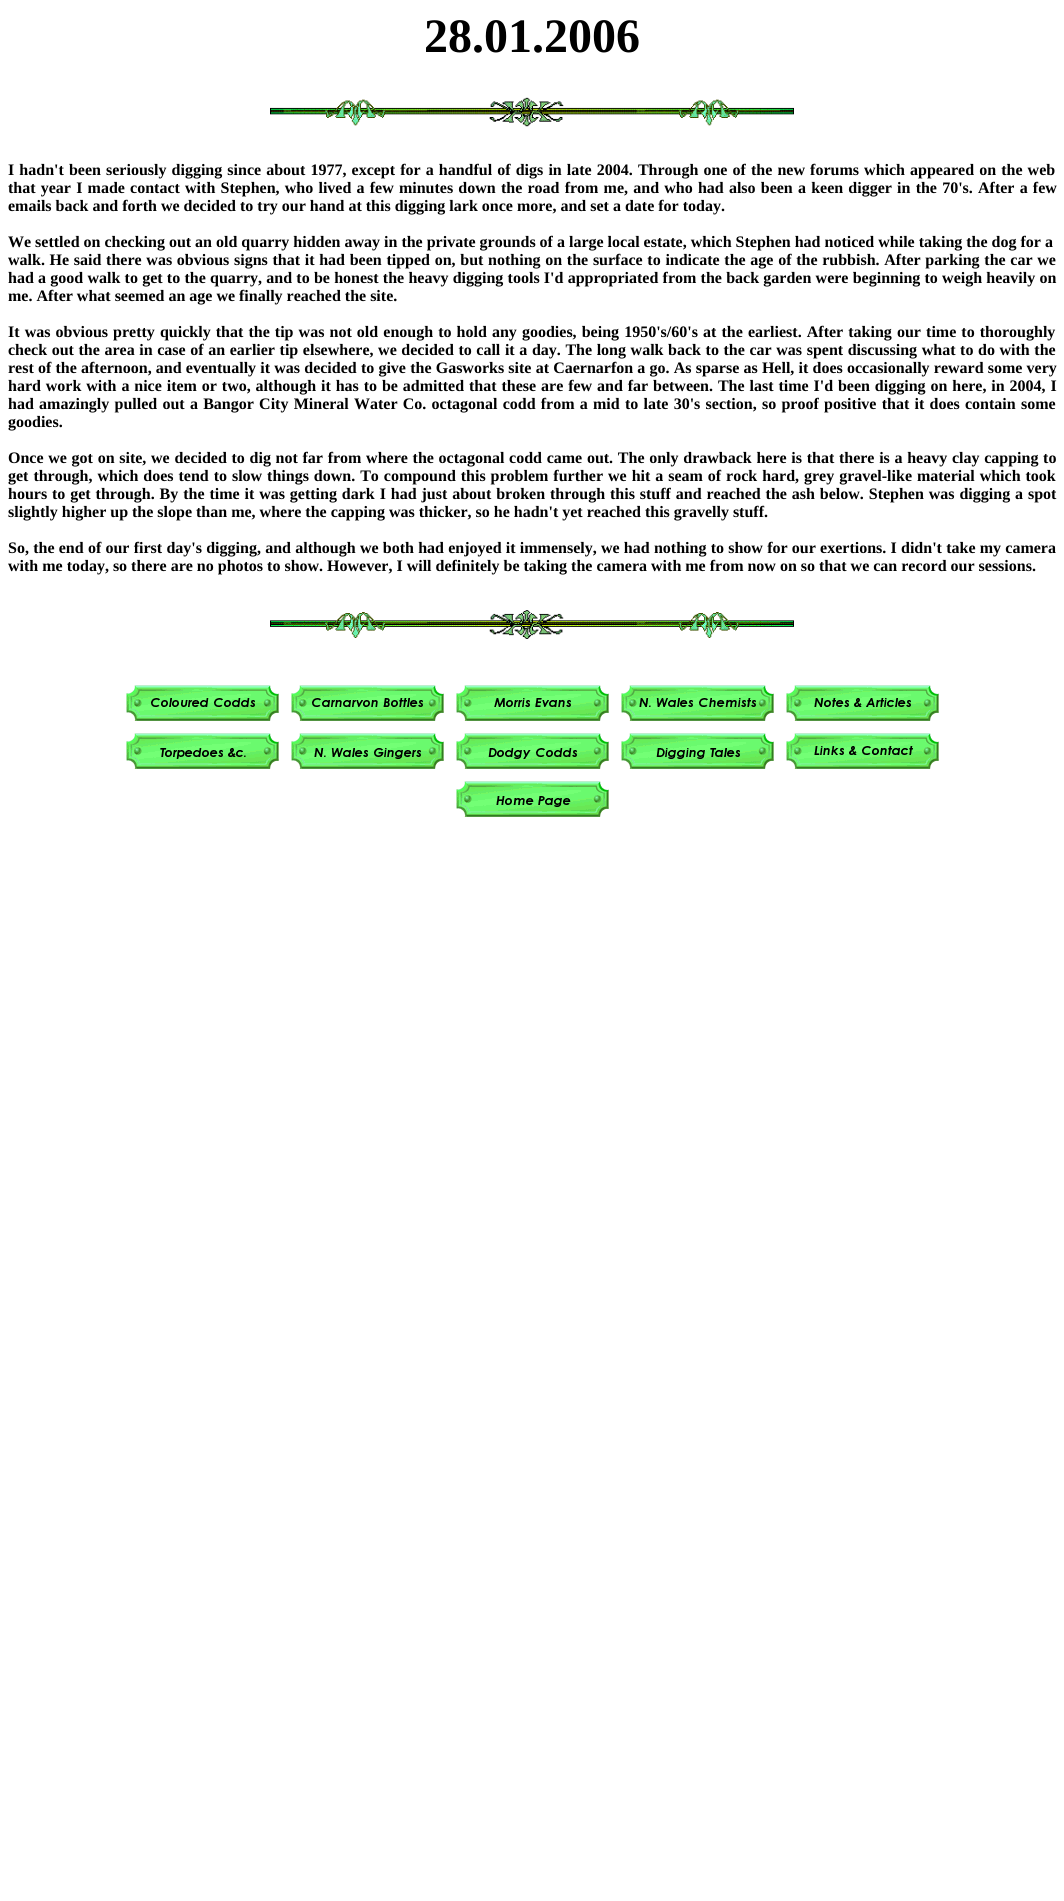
import math
import cairo



def draw_spaced(context, x, y, s, letter, word):
    context.move_to(x, y)
    for ch in s:
        context.show_text(ch)
        context.rel_move_to(letter + word * (ch == ' '), 0)


def draw_image(context, path, x, y, w, h):
    context.save()
    context.set_source_surface(cairo.ImageSurface.create_from_png(path), x, y)
    context.rectangle(x, y, w, h)
    context.fill()
    context.restore()


def draw(context):
    context.set_source_rgb(1, 1, 1)
    context.paint()
    draw_image(context, "images/1.png", 270, 97, 524, 30)
    draw_image(context, "images/2.png", 270, 610, 524, 29)
    draw_image(context, "images/3.png", 126, 685, 153, 36)
    draw_image(context, "images/4.png", 291, 685, 153, 36)
    draw_image(context, "images/5.png", 456, 685, 153, 36)
    draw_image(context, "images/6.png", 621, 685, 153, 36)
    draw_image(context, "images/7.png", 786, 685, 153, 36)
    draw_image(context, "images/8.png", 126, 733, 153, 36)
    draw_image(context, "images/9.png", 291, 733, 153, 36)
    draw_image(context, "images/10.png", 456, 733, 153, 36)
    draw_image(context, "images/11.png", 621, 733, 153, 36)
    draw_image(context, "images/12.png", 786, 733, 153, 36)
    draw_image(context, "images/13.png", 456, 781, 153, 36)
    context.select_font_face("Liberation Serif", cairo.FontSlant.NORMAL, cairo.FontWeight.BOLD)
    context.set_font_size(48)
    context.set_source_rgb(0, 0, 0)
    context.move_to(424, 52)
    context.show_text("28.01.2006")
    context.set_font_size(16)
    draw_spaced(context, 8, 175, "I hadn't been seriously digging since about 1977, except for a handful of digs in late 2004. Through one of the new forums which appeared on the web", 0, 1.1)
    draw_spaced(context, 8, 193, "that year I made contact with Stephen, who lived a few minutes down the road from me, and who had also been a keen digger in the 70's. After a few", 0, 1.2)
    context.move_to(8, 211)
    context.show_text("emails back and forth we decided to try our hand at this digging lark once more, and set a date for today.")
    context.move_to(8, 247)
    context.show_text("We settled on checking out an old quarry hidden away in the private grounds of a large local estate, which Stephen had noticed while taking the dog for a")
    draw_spaced(context, 8, 265, "walk. He said there was obvious signs that it had been tipped on, but nothing on the surface to indicate the age of the rubbish. After parking the car we", 0, 0.7)
    draw_spaced(context, 8, 283, "had a good walk to get to the quarry, and to be honest the heavy digging tools I'd appropriated from the back garden were beginning to weigh heavily on", 0, 0.25)
    context.move_to(8, 301)
    context.show_text("me. After what seemed an age we finally reached the site.")
    draw_spaced(context, 8, 337, "It was obvious pretty quickly that the tip was not old enough to hold any goodies, being 1950's/60's at the earliest. After taking our time to thoroughly", 0, 1.1)
    draw_spaced(context, 8, 355, "check out the area in case of an earlier tip elsewhere, we decided to call it a day. The long walk back to the car was spent discussing what to do with the", 0, 0.6)
    draw_spaced(context, 8, 373, "rest of the afternoon, and eventually it was decided to give the Gasworks site at Caernarfon a go. As sparse as Hell, it does occasionally reward some very", 0, 0.2)
    draw_spaced(context, 8, 391, "hard work with a nice item or two, although it has to be admitted that these are few and far between. The last time I'd been digging on here, in 2004, I", 0, 0.9)
    draw_spaced(context, 8, 409, "had amazingly pulled out a Bangor City Mineral Water Co. octagonal codd from a mid to late 30's section, so proof positive that it does contain some", 0, 1.25)
    context.move_to(8, 427)
    context.show_text("goodies.")
    draw_spaced(context, 8, 463, "Once we got on site, we decided to dig not far from where the octagonal codd came out. The only drawback here is that there is a heavy clay capping to", 0, 0.7)
    draw_spaced(context, 8, 481, "get through, which does tend to slow things down. To compound this problem further we hit a seam of rock hard, grey gravel-like material which took", 0, 0.95)
    draw_spaced(context, 8, 499, "hours to get through. By the time it was getting dark I had just about broken through this stuff and reached the ash below. Stephen was digging a spot", 0, 0.9)
    context.move_to(8, 517)
    context.show_text("slightly higher up the slope than me, where the capping was thicker, so he hadn't yet reached this gravelly stuff.")
    draw_spaced(context, 8, 553, "So, the end of our first day's digging, and although we both had enjoyed it immensely, we had nothing to show for our exertions. I didn't take my camera", 0, 0.25)
    context.move_to(8, 571)
    context.show_text("with me today, so there are no photos to show. However, I will definitely be taking the camera with me from now on so that we can record our sessions.")


surface = cairo.ImageSurface(cairo.Format.RGB24, 1064, 1901)
context = cairo.Context(surface)
options = cairo.FontOptions()
options.set_hint_metrics(cairo.HintMetrics.OFF)
options.set_hint_style(cairo.HintStyle.NONE)
context.set_font_options(options)
context.set_miter_limit(4)
draw(context)
surface.write_to_png("out.png")
